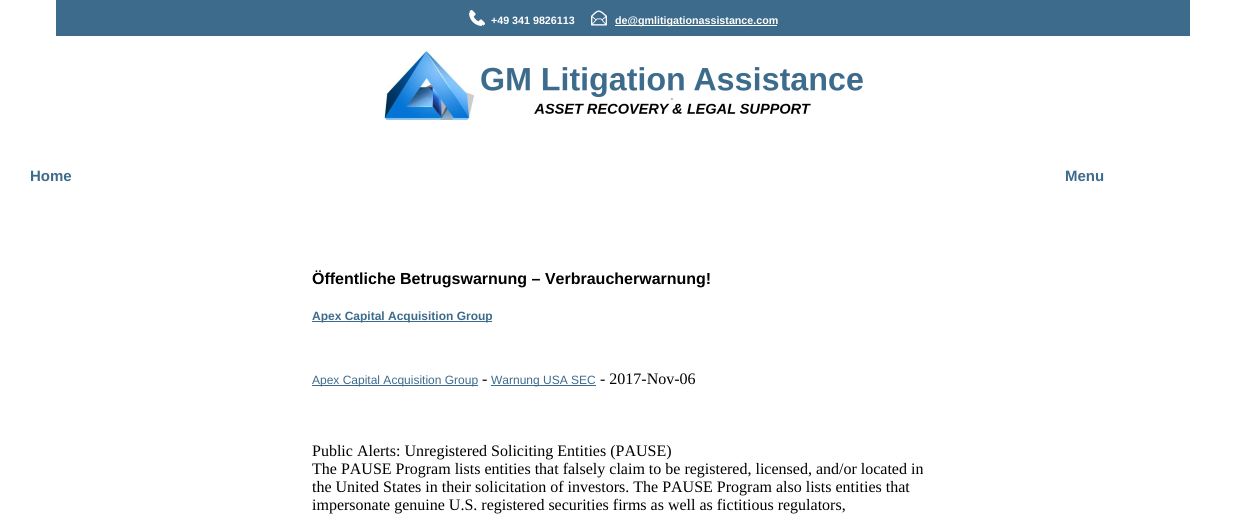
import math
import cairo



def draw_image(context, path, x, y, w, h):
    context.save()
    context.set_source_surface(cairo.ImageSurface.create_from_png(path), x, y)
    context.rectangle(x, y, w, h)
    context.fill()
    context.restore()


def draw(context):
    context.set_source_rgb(1, 1, 1)
    context.paint()
    context.set_source_rgb(61 / 255, 107 / 255, 140 / 255)
    context.rectangle(56, 0, 1134, 36)
    context.fill()
    draw_image(context, "images/1.png", 469, 10, 16, 16)
    draw_image(context, "images/2.png", 591, 10, 16, 16)
    context.set_source_rgb(1, 1, 1)
    context.rectangle(615, 25, 162, 1)
    context.fill()
    draw_image(context, "images/3.png", 382, 48, 481, 72)
    context.set_source_rgb(61 / 255, 107 / 255, 140 / 255)
    context.rectangle(312, 321, 180, 1)
    context.fill()
    context.rectangle(312, 385, 166, 1)
    context.fill()
    context.rectangle(491, 385, 105, 1)
    context.fill()
    context.select_font_face("Liberation Sans", cairo.FontSlant.NORMAL, cairo.FontWeight.BOLD)
    context.set_font_size(10.7)
    context.set_source_rgb(1, 1, 1)
    context.move_to(491, 24)
    context.show_text("+49 341 9826113")
    context.move_to(615, 24)
    context.show_text("de@gmlitigationassistance.com")
    context.set_font_size(15)
    context.set_source_rgb(61 / 255, 107 / 255, 140 / 255)
    context.move_to(30, 181)
    context.show_text("Home")
    context.move_to(1065, 181)
    context.show_text("Menu")
    context.set_font_size(16)
    context.set_source_rgb(0, 0, 0)
    context.move_to(312, 284)
    context.show_text("Öffentliche Betrugswarnung – Verbraucherwarnung!")
    context.set_font_size(12)
    context.set_source_rgb(61 / 255, 107 / 255, 140 / 255)
    context.move_to(312, 320)
    context.show_text("Apex Capital Acquisition Group")
    context.select_font_face("Liberation Sans")
    context.move_to(312, 384)
    context.show_text("Apex Capital Acquisition Group")
    context.select_font_face("Liberation Serif")
    context.set_font_size(16)
    context.set_source_rgb(0, 0, 0)
    context.move_to(482, 384)
    context.show_text("-")
    context.select_font_face("Liberation Sans")
    context.set_font_size(12)
    context.set_source_rgb(61 / 255, 107 / 255, 140 / 255)
    context.move_to(491, 384)
    context.show_text("Warnung USA SEC")
    context.select_font_face("Liberation Serif")
    context.set_font_size(16)
    context.set_source_rgb(0, 0, 0)
    context.move_to(600, 384)
    context.show_text("- 2017-Nov-06")
    context.move_to(312, 456)
    context.show_text("Public Alerts: Unregistered Soliciting Entities (PAUSE)")
    context.move_to(312, 474)
    context.show_text("The PAUSE Program lists entities that falsely claim to be registered, licensed, and/or located in")
    context.move_to(312, 492)
    context.show_text("the United States in their solicitation of investors. The PAUSE Program also lists entities that")
    context.move_to(312, 510)
    context.show_text("impersonate genuine U.S. registered securities firms as well as fictitious regulators,")


surface = cairo.ImageSurface(cairo.Format.RGB24, 1246, 522)
context = cairo.Context(surface)
options = cairo.FontOptions()
options.set_hint_metrics(cairo.HintMetrics.OFF)
options.set_hint_style(cairo.HintStyle.NONE)
context.set_font_options(options)
context.set_miter_limit(4)
draw(context)
surface.write_to_png("out.png")
